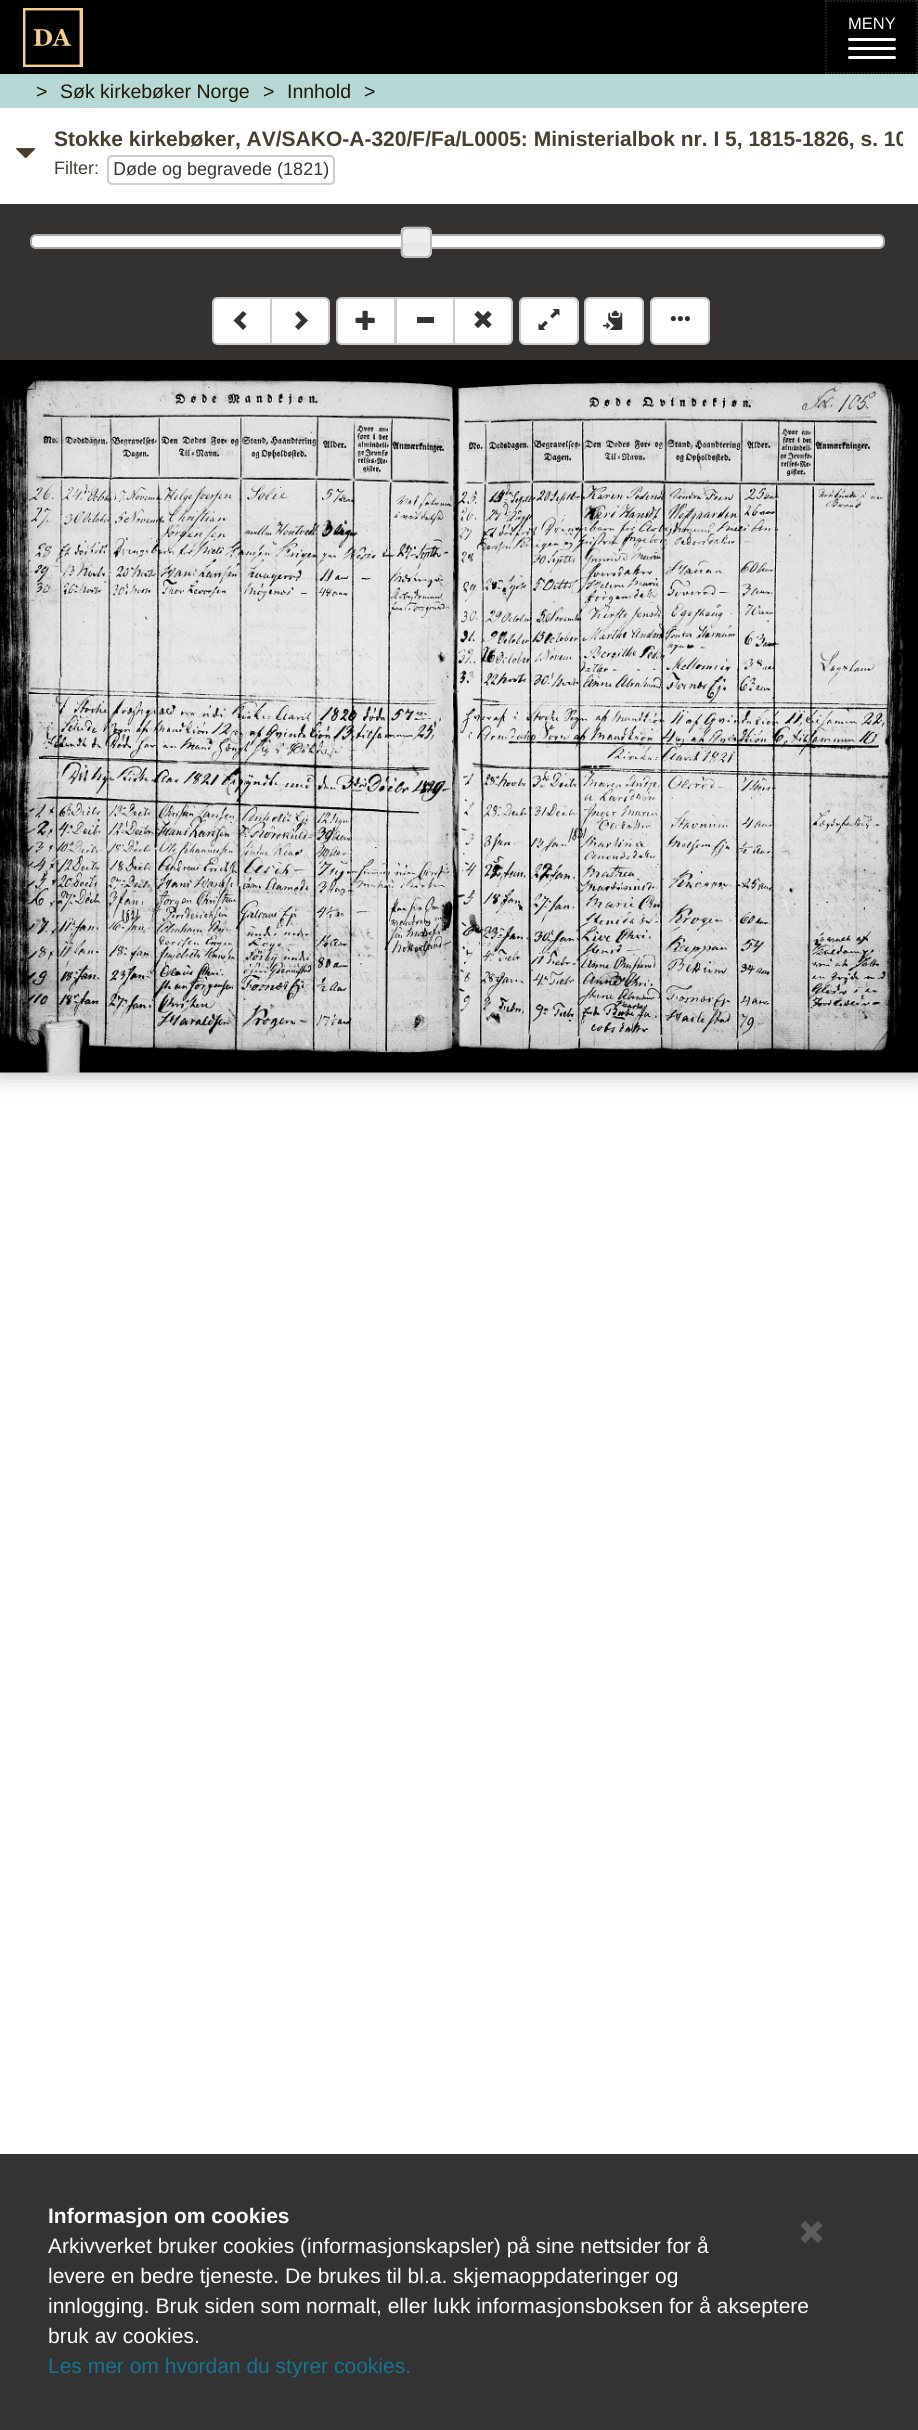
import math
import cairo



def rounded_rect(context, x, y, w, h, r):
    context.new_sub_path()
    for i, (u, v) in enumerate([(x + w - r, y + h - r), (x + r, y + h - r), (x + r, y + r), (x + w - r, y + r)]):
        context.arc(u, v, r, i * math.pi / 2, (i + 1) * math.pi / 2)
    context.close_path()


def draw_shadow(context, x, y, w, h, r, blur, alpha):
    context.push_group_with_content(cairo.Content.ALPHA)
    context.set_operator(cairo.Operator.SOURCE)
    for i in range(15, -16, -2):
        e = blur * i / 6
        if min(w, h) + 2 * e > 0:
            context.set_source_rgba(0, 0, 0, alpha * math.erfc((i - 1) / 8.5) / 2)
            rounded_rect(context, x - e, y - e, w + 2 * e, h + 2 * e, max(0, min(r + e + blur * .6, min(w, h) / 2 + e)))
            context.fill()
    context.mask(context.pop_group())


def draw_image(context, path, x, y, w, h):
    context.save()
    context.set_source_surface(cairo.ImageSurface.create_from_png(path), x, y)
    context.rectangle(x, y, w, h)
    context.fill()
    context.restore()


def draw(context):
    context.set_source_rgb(1, 1, 1)
    context.paint()
    context.set_source_rgb(0, 0, 0)
    context.rectangle(0, 0, 918, 74)
    context.fill()
    draw_image(context, "images/1.png", 23, 8, 60, 59)
    context.new_path()
    context.move_to(825, 1)
    context.line_to(918, 1)
    context.set_source_rgb(51 / 255, 51 / 255, 51 / 255)
    context.set_line_width(1.5)
    context.set_dash([1.5, 1.5])
    context.stroke()
    context.new_path()
    context.move_to(917, 0)
    context.line_to(917, 73.5)
    context.stroke()
    context.new_path()
    context.move_to(825, 73)
    context.line_to(918, 73)
    context.stroke()
    context.new_path()
    context.move_to(826, 0)
    context.line_to(826, 73.5)
    context.stroke()
    context.set_source_rgb(1, 1, 1)
    rounded_rect(context, 848, 38, 48, 3, 1.5)
    context.fill()
    rounded_rect(context, 848, 47, 48, 3, 1.5)
    context.fill()
    rounded_rect(context, 848, 56, 48, 3, 1.5)
    context.fill()
    context.set_source_rgb(182 / 255, 217 / 255, 214 / 255)
    context.rectangle(0, 74, 918, 34)
    context.fill()
    draw_image(context, "images/2.png", 16, 148, 20, 11)
    rounded_rect(context, 108, 156, 226, 28, 4)
    context.set_source_rgb(204 / 255, 204 / 255, 204 / 255)
    context.set_line_width(2)
    context.set_dash([])
    context.stroke()
    context.set_source_rgb(51 / 255, 50 / 255, 49 / 255)
    context.rectangle(0, 204, 918, 156)
    context.fill()
    context.set_source_rgb(1, 1, 1)
    rounded_rect(context, 31, 235, 853, 13, 5)
    context.fill_preserve()
    context.set_source_rgb(170 / 255, 170 / 255, 170 / 255)
    context.stroke()
    draw_image(context, "images/3.png", 400, 226, 32, 32)
    rounded_rect(context, 402, 228, 29, 29, 5)
    context.set_source_rgb(191 / 255, 190 / 255, 189 / 255)
    context.stroke()
    context.set_source_rgb(1, 1, 1)
    context.new_path()
    context.move_to(342, 298)
    context.line_to(395, 298)
    context.line_to(395, 344)
    context.line_to(342, 344)
    context.curve_to(339, 344, 337, 342, 337, 339)
    context.line_to(337, 303)
    context.curve_to(337, 300, 339, 298, 342, 298)
    context.close_path()
    context.fill_preserve()
    context.set_source_rgb(204 / 255, 204 / 255, 204 / 255)
    context.stroke()
    draw_image(context, "images/4.png", 355, 310, 20, 20)
    context.set_source_rgb(1, 1, 1)
    context.rectangle(396, 298, 58, 46)
    context.fill_preserve()
    context.set_source_rgb(204 / 255, 204 / 255, 204 / 255)
    context.stroke()
    context.set_source_rgb(1, 1, 1)
    context.new_path()
    context.move_to(454, 298)
    context.line_to(507, 298)
    context.curve_to(510, 298, 512, 300, 512, 303)
    context.line_to(512, 339)
    context.curve_to(512, 342, 510, 344, 507, 344)
    context.line_to(454, 344)
    context.close_path()
    context.fill_preserve()
    context.set_source_rgb(204 / 255, 204 / 255, 204 / 255)
    context.stroke()
    context.set_source_rgb(1, 1, 1)
    rounded_rect(context, 520, 298, 58, 46, 5)
    context.fill_preserve()
    context.set_source_rgb(204 / 255, 204 / 255, 204 / 255)
    context.stroke()
    draw_image(context, "images/6.png", 538, 309, 22, 21)
    context.set_source_rgb(1, 1, 1)
    rounded_rect(context, 585, 298, 58, 46, 5)
    context.fill_preserve()
    context.set_source_rgb(204 / 255, 204 / 255, 204 / 255)
    context.stroke()
    draw_image(context, "images/7.png", 603, 310, 20, 20)
    context.set_source_rgb(1, 1, 1)
    rounded_rect(context, 651, 298, 58, 46, 5)
    context.fill_preserve()
    context.set_source_rgb(204 / 255, 204 / 255, 204 / 255)
    context.stroke()
    context.save()
    context.rectangle(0, 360, 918, 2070)
    context.clip()
    context.set_source_rgb(0, 0, 0)
    draw_shadow(context, 0, 362, 918, 712, 0, 11, 0.3)
    context.restore()
    context.set_source_rgb(1, 1, 1)
    context.new_path()
    context.move_to(218, 298)
    context.line_to(271, 298)
    context.line_to(271, 344)
    context.line_to(218, 344)
    context.curve_to(215, 344, 213, 342, 213, 339)
    context.line_to(213, 303)
    context.curve_to(213, 300, 215, 298, 218, 298)
    context.close_path()
    context.fill_preserve()
    context.set_source_rgb(204 / 255, 204 / 255, 204 / 255)
    context.stroke()
    context.set_source_rgb(51 / 255, 51 / 255, 51 / 255)
    context.new_path()
    context.move_to(246.5, 314)
    context.line_to(240.5, 320.5)
    context.line_to(246.5, 326.5)
    context.line_to(243, 330)
    context.line_to(233.5, 320.5)
    context.line_to(243, 311)
    context.close_path()
    context.fill()
    context.set_source_rgb(1, 1, 1)
    context.new_path()
    context.move_to(271, 298)
    context.line_to(324, 298)
    context.curve_to(327, 298, 329, 300, 329, 303)
    context.line_to(329, 339)
    context.curve_to(329, 342, 327, 344, 324, 344)
    context.line_to(271, 344)
    context.close_path()
    context.fill_preserve()
    context.set_source_rgb(204 / 255, 204 / 255, 204 / 255)
    context.stroke()
    context.set_source_rgb(51 / 255, 51 / 255, 51 / 255)
    context.new_path()
    context.move_to(308, 320.5)
    context.line_to(298.5, 330)
    context.line_to(295, 326.5)
    context.line_to(301, 320.5)
    context.line_to(295, 314)
    context.line_to(298.5, 311)
    context.close_path()
    context.fill()
    context.rectangle(417, 317, 17, 6)
    context.fill()
    draw_image(context, "images/5.png", 474, 311, 18, 17)
    draw_image(context, "images/8.png", 670, 316, 20, 6)
    draw_image(context, "images/9.png", 0, 360, 918, 713)
    context.rectangle(0, 2154, 918, 276)
    context.fill()
    draw_image(context, "images/10.png", 800, 2221, 23, 22)
    context.select_font_face("Liberation Sans")
    context.set_font_size(16.5)
    context.set_source_rgb(1, 1, 1)
    context.move_to(848, 29)
    context.show_text("MENY")
    context.set_font_size(19.5)
    context.set_source_rgb(29 / 255, 23 / 255, 5 / 255)
    context.move_to(36, 98)
    context.show_text(">")
    context.move_to(60, 98)
    context.show_text("Søk kirkebøker Norge")
    context.move_to(263, 98)
    context.show_text(">")
    context.move_to(287, 98)
    context.show_text("Innhold")
    context.move_to(364, 98)
    context.show_text(">")
    context.save()
    context.rectangle(51, 125, 852, 28)
    context.clip()
    context.select_font_face("Liberation Sans", cairo.FontSlant.NORMAL, cairo.FontWeight.BOLD)
    context.set_font_size(21)
    context.set_source_rgb(70 / 255, 62 / 255, 47 / 255)
    context.move_to(54, 146)
    context.show_text("Stokke kirkebøker, AV/SAKO-A-320/F/Fa/L0005: Ministerialbok nr. I 5, 1815-1826, s. 10")
    context.restore()
    context.set_font_size(18)
    context.set_source_rgb(70 / 255, 62 / 255, 47 / 255)
    context.move_to(54, 174)
    context.show_text("Filter:")
    context.select_font_face("Noto Sans")
    context.set_source_rgb(51 / 255, 51 / 255, 51 / 255)
    context.move_to(113, 175)
    context.show_text("D")
    context.select_font_face("Liberation Sans")
    context.move_to(126, 175)
    context.show_text("øde og begravede (1821)")
    context.select_font_face("Liberation Sans", cairo.FontSlant.NORMAL, cairo.FontWeight.BOLD)
    context.set_font_size(21)
    context.set_source_rgb(1, 1, 1)
    context.move_to(48, 2223)
    context.show_text("Informasjon om cookies")
    context.select_font_face("Liberation Sans")
    context.move_to(48, 2253)
    context.show_text("Arkivverket bruker cookies (informasjonskapsler) på sine nettsider for å")
    context.move_to(48, 2283)
    context.show_text("levere en bedre tjeneste. De brukes til bl.a. skjemaoppdateringer og")
    context.move_to(48, 2313)
    context.show_text("innlogging. Bruk siden som normalt, eller lukk informasjonsboksen for å akseptere")
    context.move_to(48, 2343)
    context.show_text("bruk av cookies.")
    context.set_source_rgb(23 / 255, 115 / 255, 145 / 255)
    context.move_to(48, 2373)
    context.show_text("Les mer om hvordan du styrer cookies.")


surface = cairo.ImageSurface(cairo.Format.RGB24, 918, 2430)
context = cairo.Context(surface)
options = cairo.FontOptions()
options.set_hint_metrics(cairo.HintMetrics.OFF)
options.set_hint_style(cairo.HintStyle.NONE)
context.set_font_options(options)
context.set_miter_limit(4)
draw(context)
surface.write_to_png("out.png")
